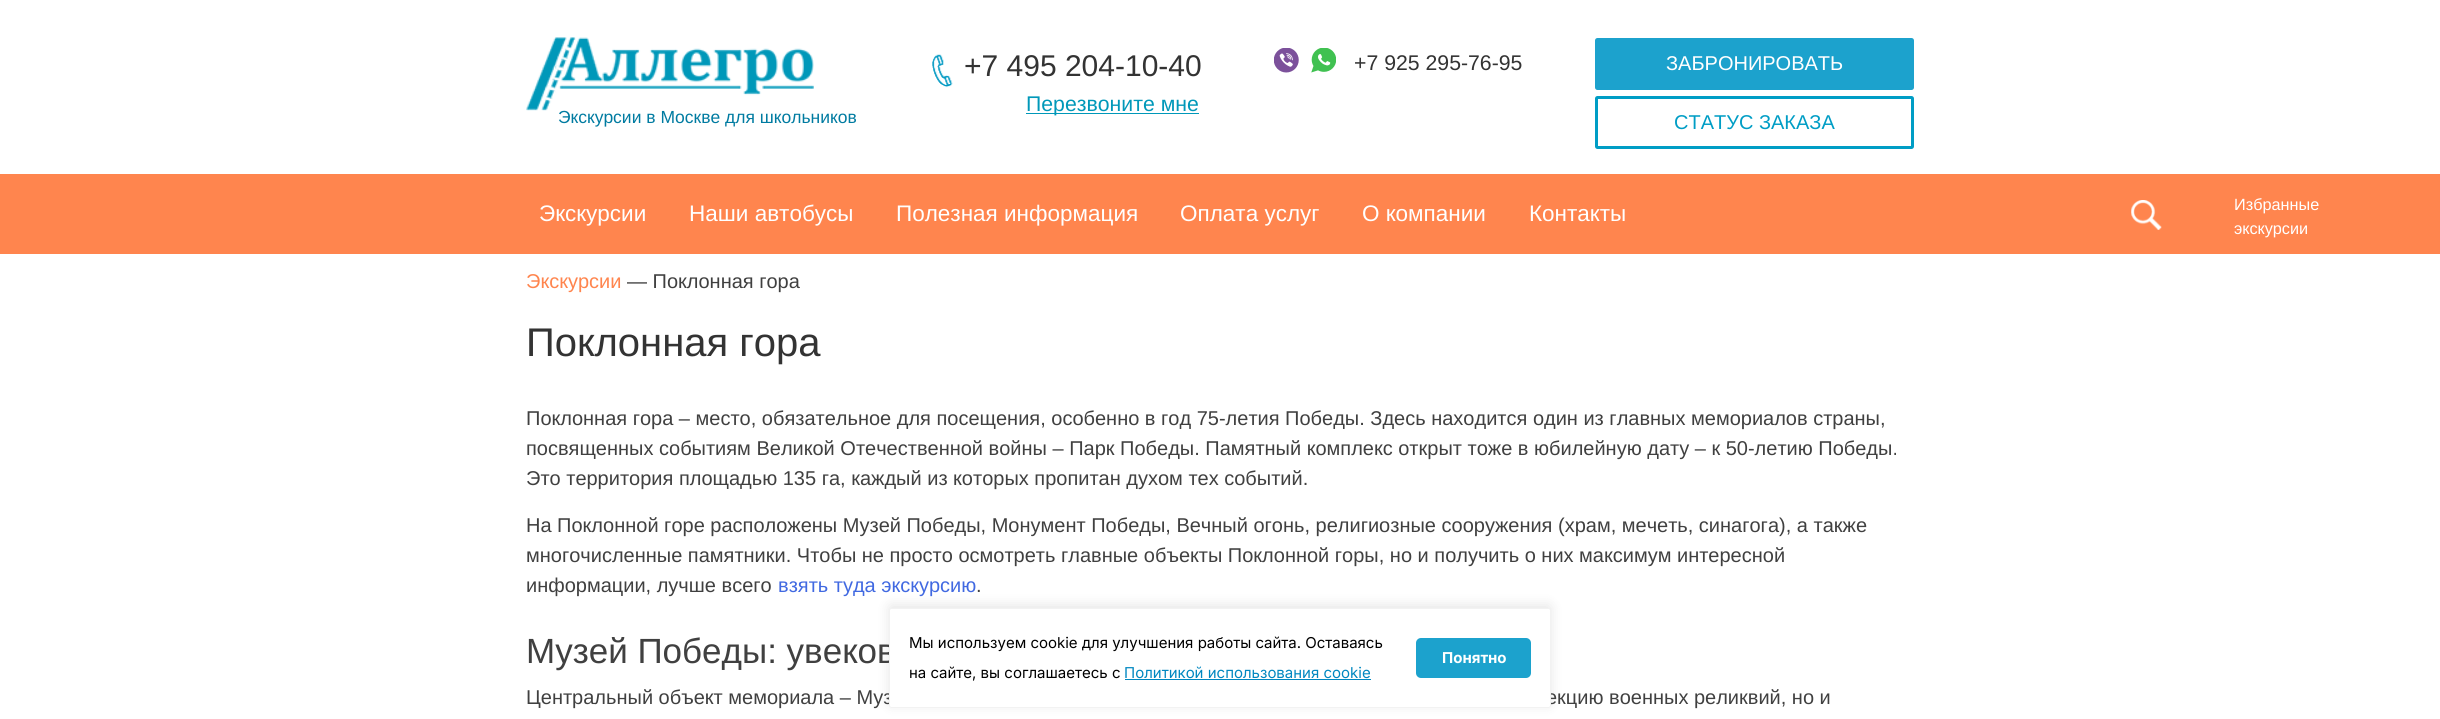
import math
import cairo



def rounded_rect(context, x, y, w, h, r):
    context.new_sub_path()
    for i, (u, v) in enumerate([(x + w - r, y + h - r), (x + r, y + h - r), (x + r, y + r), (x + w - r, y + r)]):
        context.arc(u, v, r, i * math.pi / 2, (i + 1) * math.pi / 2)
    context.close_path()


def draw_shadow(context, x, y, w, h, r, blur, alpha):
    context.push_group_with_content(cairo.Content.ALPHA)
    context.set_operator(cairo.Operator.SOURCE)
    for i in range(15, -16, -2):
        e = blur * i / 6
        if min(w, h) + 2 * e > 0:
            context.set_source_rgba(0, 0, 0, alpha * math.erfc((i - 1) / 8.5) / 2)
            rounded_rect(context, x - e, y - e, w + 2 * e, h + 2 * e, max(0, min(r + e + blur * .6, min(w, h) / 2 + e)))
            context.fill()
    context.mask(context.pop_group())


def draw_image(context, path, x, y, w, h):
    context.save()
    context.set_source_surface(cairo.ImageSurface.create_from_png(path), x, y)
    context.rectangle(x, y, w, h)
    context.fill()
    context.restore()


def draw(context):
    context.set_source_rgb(1, 1, 1)
    context.paint()
    draw_image(context, "images/1.png", 526, 37, 288, 74)
    draw_image(context, "images/2.png", 932, 54, 21, 34)
    context.set_source_rgb(0, 152 / 255, 185 / 255)
    context.rectangle(1026, 113, 173, 1)
    context.fill()
    draw_image(context, "images/3.png", 1274, 48, 25, 25)
    draw_image(context, "images/4.png", 1311, 48, 25, 25)
    context.set_source_rgb(28 / 255, 162 / 255, 205 / 255)
    rounded_rect(context, 1596.5, 39.5, 316, 49, 1)
    context.fill_preserve()
    context.set_line_width(3)
    context.stroke()
    rounded_rect(context, 1596.5, 97.5, 316, 50, 1)
    context.set_source_rgb(0, 157 / 255, 197 / 255)
    context.stroke()
    context.set_source_rgb(1, 133 / 255, 78 / 255)
    context.rectangle(0, 174, 2440, 80)
    context.fill()
    draw_image(context, "images/5.png", 2131, 200, 31, 30)
    context.set_source_rgb(0, 0, 0)
    draw_shadow(context, 889, 605, 662, 100, 2.5, 6, 0.1)
    context.select_font_face("Liberation Sans")
    context.set_font_size(17.5)
    context.set_source_rgb(0, 123 / 255, 161 / 255)
    context.move_to(558, 123)
    context.show_text("Экскурсии в Москве для школьников")
    context.set_font_size(30)
    context.set_source_rgb(51 / 255, 51 / 255, 51 / 255)
    context.move_to(964, 76)
    context.show_text("+7 495 204-10-40")
    context.set_font_size(21.25)
    context.set_source_rgb(0, 152 / 255, 185 / 255)
    context.move_to(1026, 111)
    context.show_text("Перезвоните мне")
    context.set_source_rgb(51 / 255, 51 / 255, 51 / 255)
    context.move_to(1354, 70)
    context.show_text("+7 925 295-76-95")
    context.set_font_size(20)
    context.set_source_rgb(1, 1, 1)
    context.move_to(1666, 70)
    context.show_text("ЗАБРОНИРОВАТЬ")
    context.set_source_rgb(0, 157 / 255, 197 / 255)
    context.move_to(1674, 129)
    context.show_text("СТАТУС ЗАКАЗА")
    context.set_font_size(22.5)
    context.set_source_rgb(1, 1, 1)
    context.move_to(539, 221)
    context.show_text("Экскурсии")
    context.move_to(689, 221)
    context.show_text("Наши автобусы")
    context.move_to(896, 221)
    context.show_text("Полезная информация")
    context.move_to(1180, 221)
    context.show_text("Оплата услуг")
    context.move_to(1362, 221)
    context.show_text("О компании")
    context.move_to(1529, 221)
    context.show_text("Контакты")
    context.set_font_size(16.25)
    context.move_to(2234, 210)
    context.show_text("Избранные")
    context.move_to(2234, 234)
    context.show_text("экскурсии")
    context.set_font_size(20)
    context.set_source_rgb(1, 133 / 255, 78 / 255)
    context.move_to(526, 288)
    context.show_text("Экскурсии")
    context.set_source_rgb(64 / 255, 64 / 255, 64 / 255)
    context.move_to(627, 288)
    context.show_text("— Поклонная гора")
    context.set_font_size(40)
    context.set_source_rgb(51 / 255, 51 / 255, 51 / 255)
    context.move_to(526, 356)
    context.show_text("Поклонная гора")
    context.set_font_size(20)
    context.set_source_rgb(64 / 255, 64 / 255, 64 / 255)
    context.move_to(526, 425)
    context.show_text("Поклонная гора – место, обязательное для посещения, особенно в год 75-летия Победы. Здесь находится один из главных мемориалов страны,")
    context.move_to(526, 455)
    context.show_text("посвященных событиям Великой Отечественной войны – Парк Победы. Памятный комплекс открыт тоже в юбилейную дату – к 50-летию Победы.")
    context.move_to(526, 485)
    context.show_text("Это территория площадью 135 га, каждый из которых пропитан духом тех событий.")
    context.move_to(526, 532)
    context.show_text("На Поклонной горе расположены Музей Победы, Монумент Победы, Вечный огонь, религиозные сооружения (храм, мечеть, синагога), а также")
    context.move_to(526, 562)
    context.show_text("многочисленные памятники. Чтобы не просто осмотреть главные объекты Поклонной горы, но и получить о них максимум интересной")
    context.move_to(526, 592)
    context.show_text("информации, лучше всего")
    context.set_source_rgb(65 / 255, 105 / 255, 225 / 255)
    context.move_to(778, 592)
    context.show_text("взять туда экскурсию")
    context.set_source_rgb(64 / 255, 64 / 255, 64 / 255)
    context.move_to(976, 592)
    context.show_text(".")
    context.set_font_size(35)
    context.move_to(526, 663)
    context.show_text("Музей Победы: увеков")
    context.set_font_size(20)
    context.move_to(526, 704)
    context.show_text("Центральный объект мемориала – Муз")
    context.move_to(1546, 704)
    context.show_text("екцию военных реликвий, но и")
    context.set_source_rgb(1, 1, 1)
    rounded_rect(context, 889.5, 608.5, 661, 99, 2)
    context.fill_preserve()
    context.set_source_rgb(242 / 255, 242 / 255, 242 / 255)
    context.set_line_width(1)
    context.stroke()
    context.select_font_face("Inter")
    context.set_font_size(15)
    context.set_source_rgb(0, 0, 0)
    context.move_to(909, 648)
    context.show_text("Мы используем cookie для улучшения работы сайта. Оставаясь")
    context.move_to(909, 678)
    context.show_text("на сайте, вы соглашаетесь с")
    context.set_source_rgb(0, 135 / 255, 192 / 255)
    context.move_to(1124, 678)
    context.show_text("Политикой использования cookie")
    context.rectangle(1125, 679, 246, 1)
    context.fill()
    context.set_source_rgb(28 / 255, 162 / 255, 205 / 255)
    rounded_rect(context, 1416, 638, 115, 40, 5)
    context.fill()
    context.select_font_face("Inter", cairo.FontSlant.NORMAL, cairo.FontWeight.BOLD)
    context.set_source_rgb(1, 1, 1)
    context.move_to(1442, 663)
    context.show_text("Понятно")


surface = cairo.ImageSurface(cairo.Format.RGB24, 2440, 719)
context = cairo.Context(surface)
options = cairo.FontOptions()
options.set_hint_metrics(cairo.HintMetrics.OFF)
options.set_hint_style(cairo.HintStyle.NONE)
context.set_font_options(options)
context.set_miter_limit(4)
draw(context)
surface.write_to_png("out.png")
